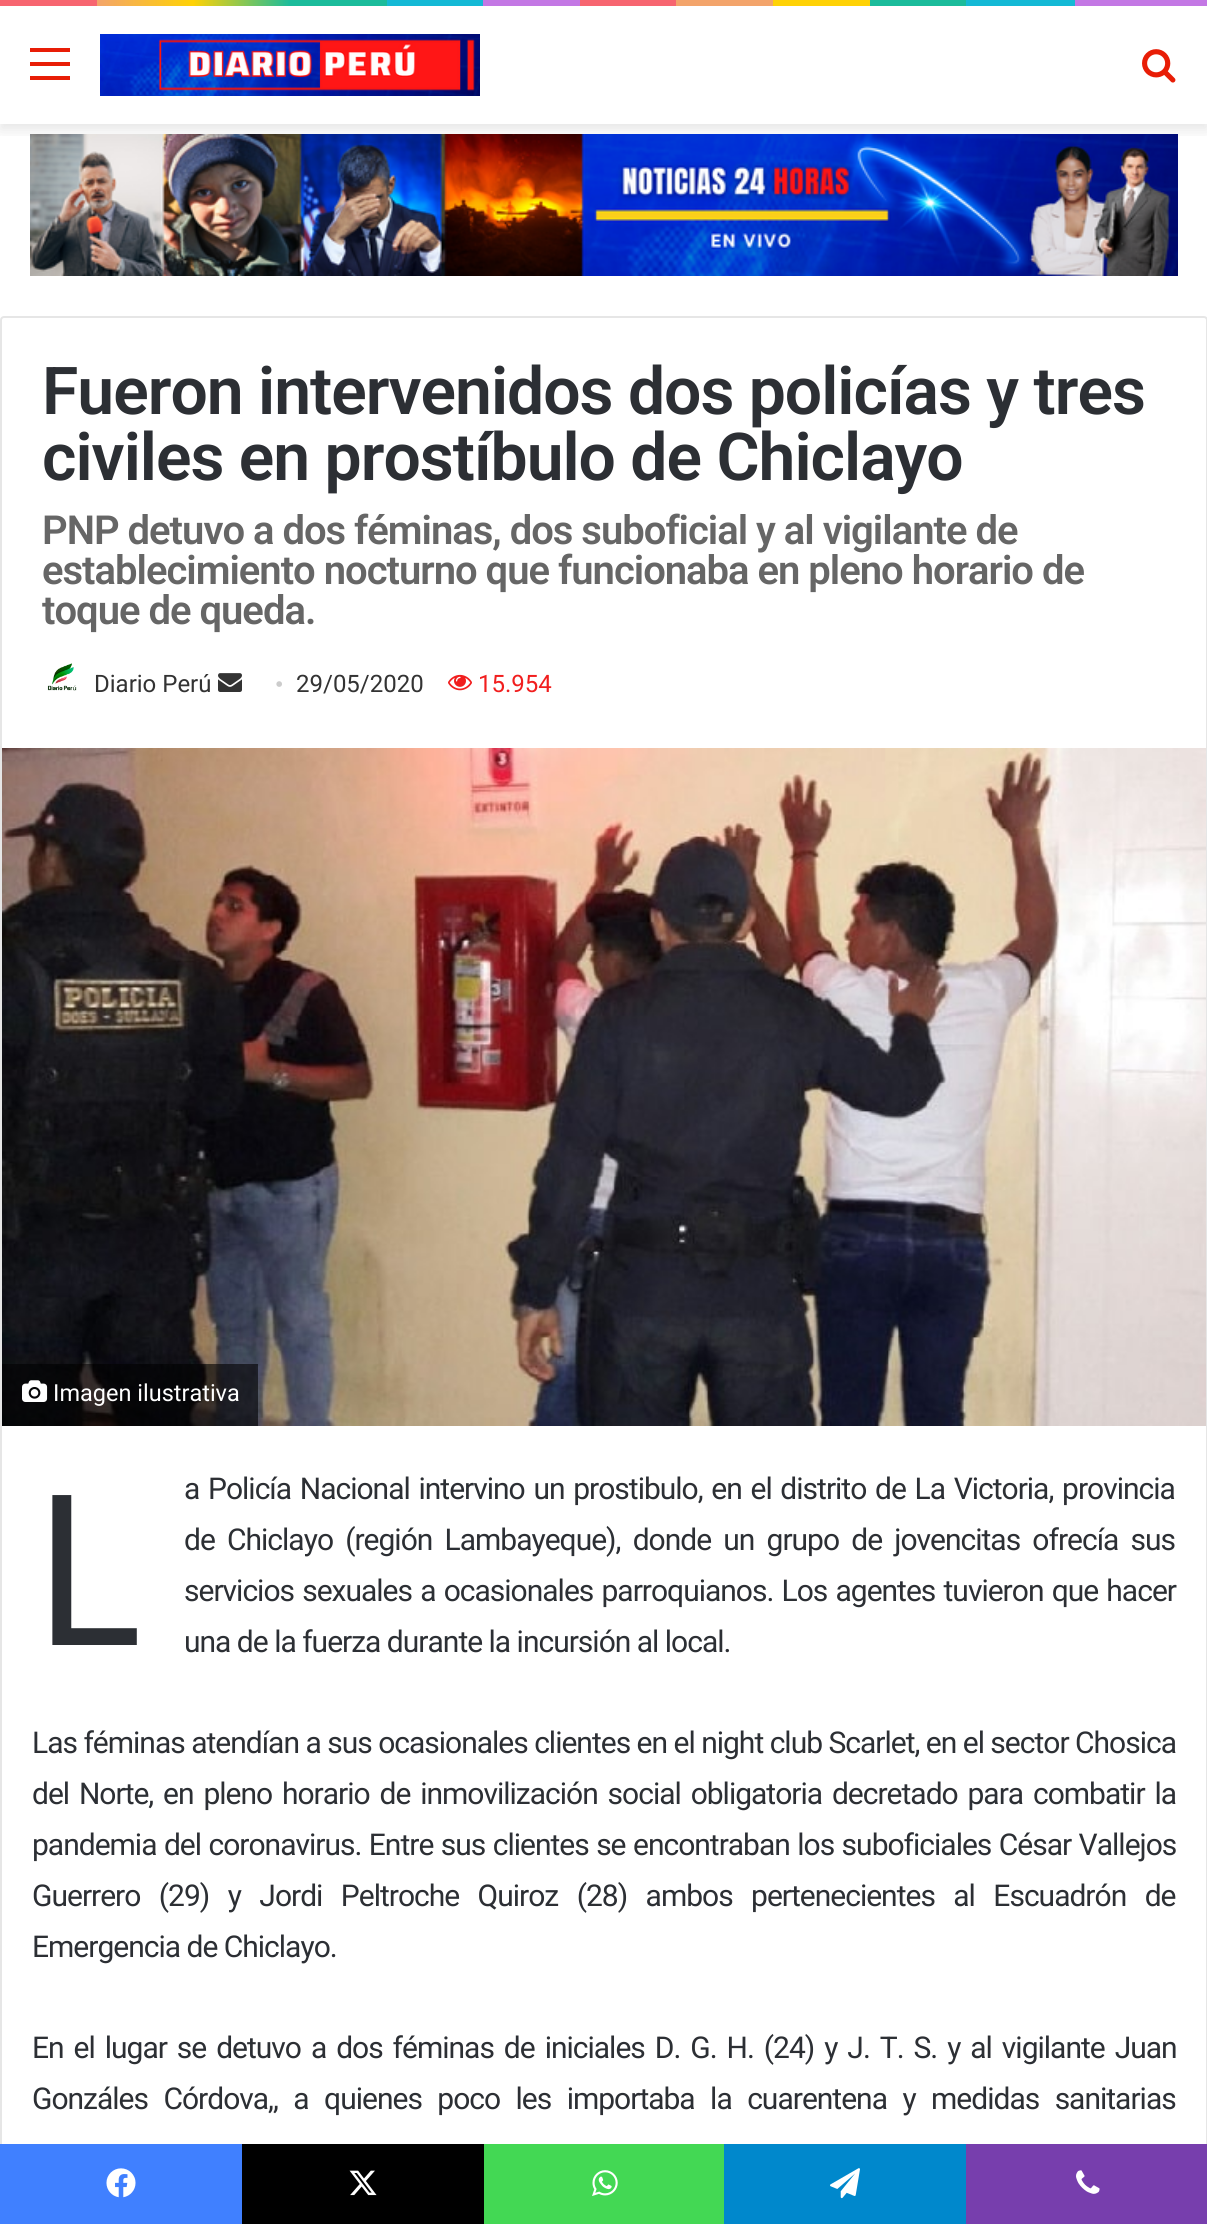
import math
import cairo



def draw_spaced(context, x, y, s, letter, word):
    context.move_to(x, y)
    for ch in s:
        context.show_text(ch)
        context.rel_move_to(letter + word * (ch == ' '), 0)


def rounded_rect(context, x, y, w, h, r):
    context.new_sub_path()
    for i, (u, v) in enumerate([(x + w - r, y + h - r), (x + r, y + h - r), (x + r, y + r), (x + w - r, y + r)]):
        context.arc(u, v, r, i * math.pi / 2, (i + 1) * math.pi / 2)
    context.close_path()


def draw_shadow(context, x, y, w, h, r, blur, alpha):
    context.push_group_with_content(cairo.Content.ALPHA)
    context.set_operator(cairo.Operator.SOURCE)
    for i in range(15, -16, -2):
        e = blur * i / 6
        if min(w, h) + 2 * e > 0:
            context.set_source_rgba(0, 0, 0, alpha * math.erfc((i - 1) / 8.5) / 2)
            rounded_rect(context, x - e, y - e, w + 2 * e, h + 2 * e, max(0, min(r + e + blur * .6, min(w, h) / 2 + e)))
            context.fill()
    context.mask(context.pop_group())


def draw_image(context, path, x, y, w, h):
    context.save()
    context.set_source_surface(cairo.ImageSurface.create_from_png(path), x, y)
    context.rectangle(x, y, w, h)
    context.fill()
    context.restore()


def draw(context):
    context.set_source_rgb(1, 1, 1)
    context.paint()
    gradient = cairo.LinearGradient(0, 3, 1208, 3)
    gradient.add_color_stop_rgba(0, 247 / 255, 101 / 255, 112 / 255, 1)
    gradient.add_color_stop_rgba(0.08, 247 / 255, 101 / 255, 112 / 255, 1)
    gradient.add_color_stop_rgba(0.08, 243 / 255, 164 / 255, 107 / 255, 1)
    gradient.add_color_stop_rgba(0.16, 1, 210 / 255, 5 / 255, 1)
    gradient.add_color_stop_rgba(0.24, 27 / 255, 188 / 255, 155 / 255, 1)
    gradient.add_color_stop_rgba(0.32, 27 / 255, 188 / 255, 155 / 255, 1)
    gradient.add_color_stop_rgba(0.32, 20 / 255, 185 / 255, 213 / 255, 1)
    gradient.add_color_stop_rgba(0.4, 20 / 255, 185 / 255, 213 / 255, 1)
    gradient.add_color_stop_rgba(0.4, 195 / 255, 119 / 255, 228 / 255, 1)
    gradient.add_color_stop_rgba(0.48, 195 / 255, 119 / 255, 228 / 255, 1)
    gradient.add_color_stop_rgba(0.48, 247 / 255, 101 / 255, 112 / 255, 1)
    gradient.add_color_stop_rgba(0.56, 247 / 255, 101 / 255, 112 / 255, 1)
    gradient.add_color_stop_rgba(0.56, 243 / 255, 164 / 255, 107 / 255, 1)
    gradient.add_color_stop_rgba(0.64, 243 / 255, 164 / 255, 107 / 255, 1)
    gradient.add_color_stop_rgba(0.64, 1, 210 / 255, 5 / 255, 1)
    gradient.add_color_stop_rgba(0.72, 1, 210 / 255, 5 / 255, 1)
    gradient.add_color_stop_rgba(0.72, 27 / 255, 188 / 255, 155 / 255, 1)
    gradient.add_color_stop_rgba(0.8, 27 / 255, 188 / 255, 155 / 255, 1)
    gradient.add_color_stop_rgba(0.8, 20 / 255, 185 / 255, 213 / 255, 1)
    gradient.add_color_stop_rgba(0.89, 20 / 255, 185 / 255, 213 / 255, 1)
    gradient.add_color_stop_rgba(0.89, 195 / 255, 119 / 255, 228 / 255, 1)
    gradient.add_color_stop_rgba(1, 195 / 255, 119 / 255, 228 / 255, 1)
    context.set_source(gradient)
    context.rectangle(0, 0, 1207, 6)
    context.fill()
    context.save()
    context.rectangle(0, 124, 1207, 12)
    context.clip()
    context.set_source_rgb(0, 0, 0)
    draw_shadow(context, 0, 12, 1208, 118, 0, 7, 0.1)
    context.restore()
    context.set_source_rgb(232 / 255, 29 / 255, 6 / 255)
    context.rectangle(30, 62, 40, 4)
    context.fill()
    context.rectangle(30, 48, 40, 4)
    context.fill()
    context.rectangle(30, 76, 40, 4)
    context.fill()
    draw_image(context, "images/1.png", 100, 34, 380, 62)
    draw_image(context, "images/2.png", 1142, 49, 34, 34)
    draw_image(context, "images/3.png", 30, 134, 1148, 142)
    rounded_rect(context, 1, 317, 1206, 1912, 3)
    context.set_source_rgb(230 / 255, 230 / 255, 230 / 255)
    context.stroke()
    draw_image(context, "images/4.png", 47, 663, 30, 28)
    draw_image(context, "images/5.png", 218, 673, 24, 19)
    draw_image(context, "images/6.png", 448, 674, 24, 17)
    draw_image(context, "images/7.png", 2, 748, 1204, 678)
    context.set_source_rgba(0, 0, 0, 0.6)
    context.rectangle(2, 1364, 256, 62)
    context.fill()
    draw_image(context, "images/8.png", 22, 1380, 26, 22)
    context.set_source_rgb(64 / 255, 128 / 255, 1)
    context.rectangle(0, 2144, 242, 80)
    context.fill()
    draw_image(context, "images/9.png", 106, 2168, 30, 30)
    context.set_source_rgb(0, 0, 0)
    context.rectangle(242, 2144, 242, 80)
    context.fill()
    draw_image(context, "images/10.png", 349, 2170, 28, 26)
    context.set_source_rgb(67 / 255, 216 / 255, 84 / 255)
    context.rectangle(484, 2144, 240, 80)
    context.fill()
    draw_image(context, "images/11.png", 592, 2170, 26, 26)
    context.set_source_rgb(0, 136 / 255, 204 / 255)
    context.rectangle(724, 2144, 242, 80)
    context.fill()
    draw_image(context, "images/12.png", 830, 2168, 30, 31)
    context.set_source_rgb(119 / 255, 62 / 255, 173 / 255)
    context.rectangle(966, 2144, 241, 80)
    context.fill()
    draw_image(context, "images/13.png", 1076, 2170, 24, 24)
    context.select_font_face("Roboto SemiBold")
    context.set_font_size(66)
    context.set_source_rgb(44 / 255, 47 / 255, 52 / 255)
    draw_spaced(context, 42, 414, "Fueron intervenidos dos policías y tres", -1, 0)
    draw_spaced(context, 42, 480, "civiles en prostíbulo de Chiclayo", -1, 0)
    context.set_font_size(40)
    context.set_source_rgb(102 / 255, 102 / 255, 102 / 255)
    draw_spaced(context, 42, 544, "PNP detuvo a dos féminas, dos suboficial y al vigilante de", -1, 0)
    draw_spaced(context, 42, 584, "establecimiento nocturno que funcionaba en pleno horario de", -1, 0)
    draw_spaced(context, 42, 624, "toque de queda.", -1, 0)
    context.select_font_face("Roboto")
    context.set_font_size(24)
    context.set_source_rgb(51 / 255, 51 / 255, 51 / 255)
    context.move_to(94, 692)
    context.show_text("Diario Perú")
    context.select_font_face("Liberation Serif")
    context.set_source_rgb(204 / 255, 204 / 255, 204 / 255)
    context.move_to(275, 692)
    context.show_text("•")
    context.select_font_face("Roboto")
    context.set_source_rgb(51 / 255, 51 / 255, 51 / 255)
    context.move_to(296, 692)
    context.show_text("29/05/2020")
    context.set_source_rgb(241 / 255, 30 / 255, 30 / 255)
    context.move_to(478, 692)
    context.show_text("15.954")
    context.set_font_size(23.5)
    context.set_source_rgb(1, 1, 1)
    context.move_to(53, 1401)
    context.show_text("Imagen ilustrativa")
    context.set_font_size(30)
    context.set_source_rgb(44 / 255, 47 / 255, 52 / 255)
    draw_spaced(context, 184, 1499, "a Policía Nacional intervino un prostibulo, en el distrito de La Victoria, provincia", -1, 2.25)
    context.select_font_face("Noto Sans")
    context.set_font_size(210)
    draw_spaced(context, 32, 1645, "L", -1, 0)
    context.select_font_face("Roboto")
    context.set_font_size(30)
    draw_spaced(context, 184, 1550, "de Chiclayo (región Lambayeque), donde un grupo de jovencitas ofrecía sus", -1, 5.75)
    draw_spaced(context, 184, 1601, "servicios sexuales a ocasionales parroquianos. Los agentes tuvieron que hacer", -1, 1.75)
    draw_spaced(context, 184, 1652, "una de la fuerza durante la incursión al local.", -1, 0)
    draw_spaced(context, 32, 1753, "Las féminas atendían a sus ocasionales clientes en el night club Scarlet, en el sector Chosica", -1, 0)
    draw_spaced(context, 32, 1804, "del Norte, en pleno horario de inmovilización social obligatoria decretado para combatir la", -1, 3.4)
    draw_spaced(context, 32, 1855, "pandemia del coronavirus. Entre sus clientes se encontraban los suboficiales César Vallejos", -1, 1)
    draw_spaced(context, 32, 1906, "Guerrero (29) y Jordi Peltroche Quiroz (28) ambos pertenecientes al Escuadrón de", -1, 12)
    draw_spaced(context, 32, 1957, "Emergencia de Chiclayo.", -1, 0)
    draw_spaced(context, 32, 2058, "En el lugar se detuvo a dos féminas de iniciales D. G. H. (24) y J. T. S. y al vigilante Juan", -1, 3.5)
    draw_spaced(context, 32, 2109, "Gonzáles Córdova,, a quienes poco les importaba la cuarentena y medidas sanitarias", -1, 9)


surface = cairo.ImageSurface(cairo.Format.RGB24, 1207, 2224)
context = cairo.Context(surface)
options = cairo.FontOptions()
options.set_hint_metrics(cairo.HintMetrics.OFF)
options.set_hint_style(cairo.HintStyle.NONE)
context.set_font_options(options)
context.set_miter_limit(4)
draw(context)
surface.write_to_png("out.png")
